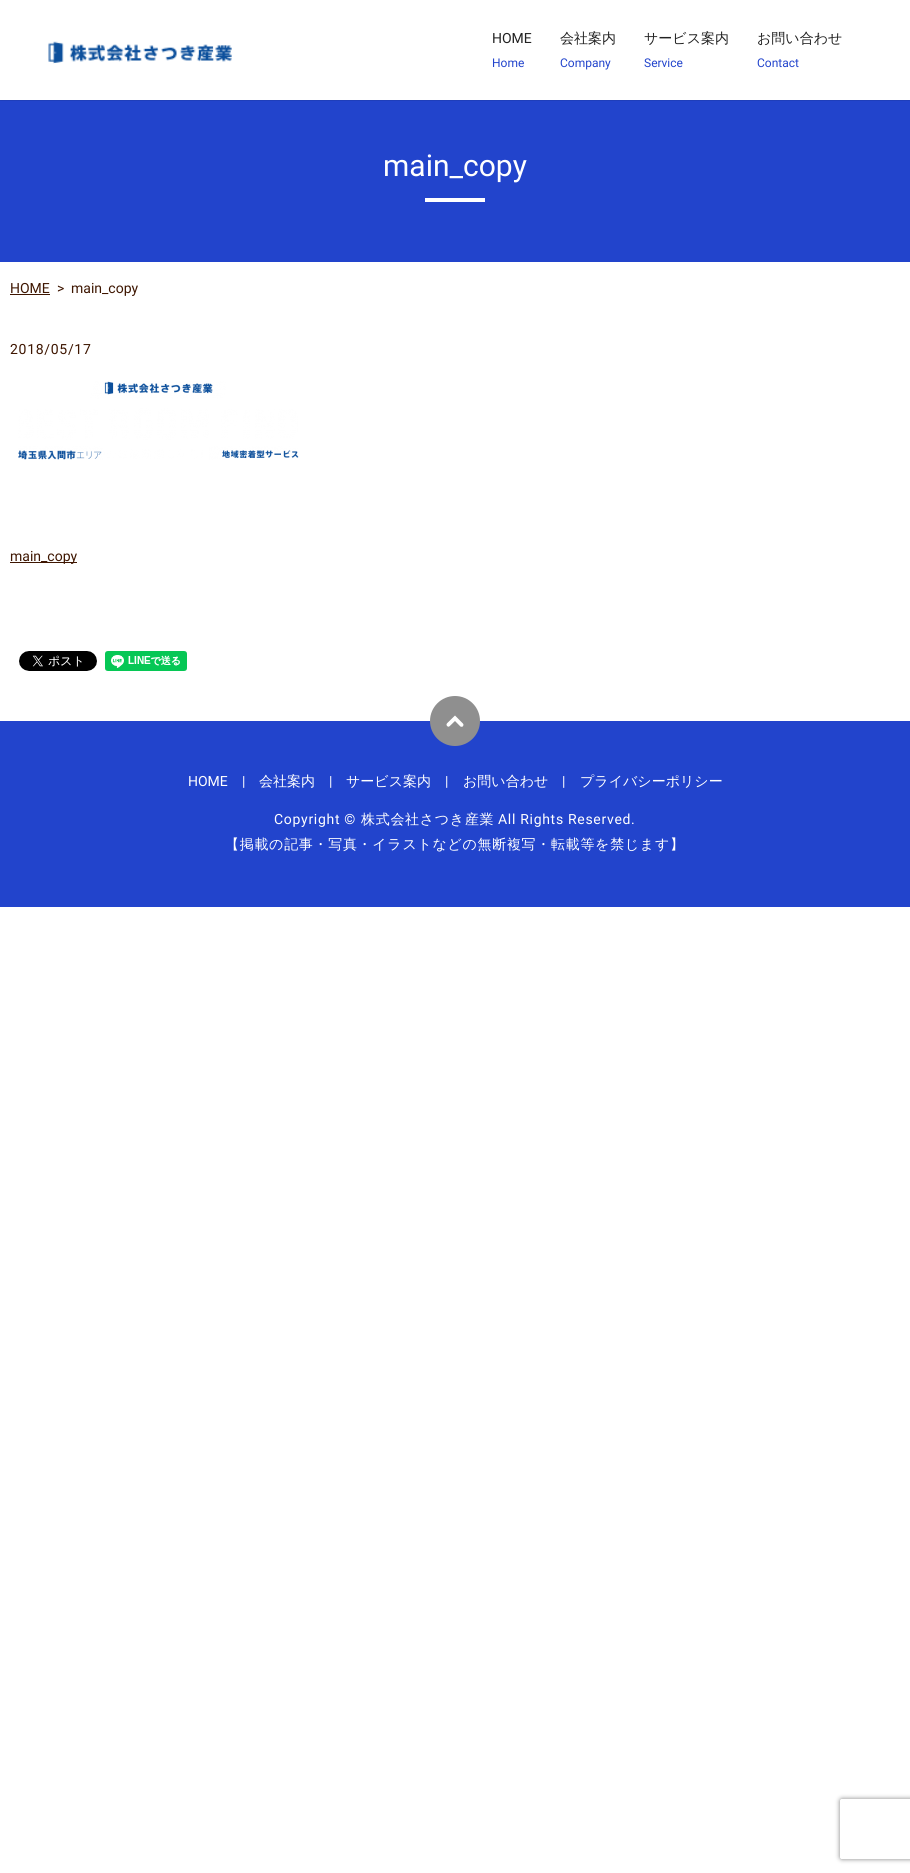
import math
import cairo



def draw_spaced(context, x, y, s, letter, word):
    context.move_to(x, y)
    for ch in s:
        context.show_text(ch)
        context.rel_move_to(letter + word * (ch == ' '), 0)


def rounded_rect(context, x, y, w, h, r):
    context.new_sub_path()
    for i, (u, v) in enumerate([(x + w - r, y + h - r), (x + r, y + h - r), (x + r, y + r), (x + w - r, y + r)]):
        context.arc(u, v, r, i * math.pi / 2, (i + 1) * math.pi / 2)
    context.close_path()


def draw_shadow(context, x, y, w, h, r, blur, alpha):
    context.push_group_with_content(cairo.Content.ALPHA)
    context.set_operator(cairo.Operator.SOURCE)
    for i in range(15, -16, -2):
        e = blur * i / 6
        if min(w, h) + 2 * e > 0:
            context.set_source_rgba(0, 0, 0, alpha * math.erfc((i - 1) / 8.5) / 2)
            rounded_rect(context, x - e, y - e, w + 2 * e, h + 2 * e, max(0, min(r + e + blur * .6, min(w, h) / 2 + e)))
            context.fill()
    context.mask(context.pop_group())


def draw_image(context, path, x, y, w, h):
    context.save()
    context.set_source_surface(cairo.ImageSurface.create_from_png(path), x, y)
    context.rectangle(x, y, w, h)
    context.fill()
    context.restore()


def draw(context):
    context.set_source_rgb(1, 1, 1)
    context.paint()
    context.set_source_rgb(34 / 255, 68 / 255, 204 / 255)
    context.rectangle(0, 100, 910, 162)
    context.fill()
    context.save()
    context.rectangle(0, 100, 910, 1)
    context.clip()
    context.set_source_rgb(0, 0, 0)
    draw_shadow(context, 0, 1, 910, 100, 0, 0.5, 0.1)
    context.restore()
    draw_image(context, "images/1.png", 48, 41, 184, 23)
    context.set_source_rgb(1, 1, 1)
    context.rectangle(425, 198, 60, 4)
    context.fill()
    context.set_source_rgb(62 / 255, 22 / 255, 1 / 255)
    context.rectangle(10, 294, 40, 1)
    context.fill()
    draw_image(context, "images/2.png", 18, 381, 281, 79)
    context.rectangle(10, 562, 67, 1)
    context.fill()
    draw_image(context, "images/3.png", 19, 651, 78, 20)
    draw_image(context, "images/4.png", 105, 651, 82, 20)
    context.set_source_rgb(34 / 255, 68 / 255, 204 / 255)
    context.rectangle(0, 721, 910, 186)
    context.fill()
    context.set_source_rgb(143 / 255, 143 / 255, 143 / 255)
    context.arc(455, 721, 25, 0, 2 * math.pi)
    context.fill()
    draw_image(context, "images/5.png", 446, 715, 18, 12)
    context.save()
    context.set_fill_rule(cairo.FillRule.EVEN_ODD)
    context.new_path()
    context.move_to(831, 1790)
    context.line_to(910, 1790)
    context.line_to(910, 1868)
    context.line_to(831, 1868)
    context.close_path()
    context.move_to(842, 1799)
    context.line_to(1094, 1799)
    context.curve_to(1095, 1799, 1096, 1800, 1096, 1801)
    context.line_to(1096, 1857)
    context.curve_to(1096, 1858, 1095, 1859, 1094, 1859)
    context.line_to(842, 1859)
    context.curve_to(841, 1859, 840, 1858, 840, 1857)
    context.line_to(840, 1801)
    context.curve_to(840, 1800, 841, 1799, 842, 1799)
    context.close_path()
    context.clip()
    context.set_source_rgb(128 / 255, 128 / 255, 128 / 255)
    draw_shadow(context, 840, 1799, 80, 60, 2, 2.5, 1)
    context.restore()
    context.select_font_face("Roboto")
    context.set_font_size(14)
    context.set_source_rgb(34 / 255, 34 / 255, 34 / 255)
    context.move_to(492, 43)
    context.show_text("HOME")
    context.set_font_size(12)
    context.set_source_rgb(34 / 255, 68 / 255, 204 / 255)
    context.move_to(492, 67)
    context.show_text("Home")
    context.select_font_face("WenQuanYi Zen Hei Medium")
    context.set_font_size(14)
    context.set_source_rgb(34 / 255, 34 / 255, 34 / 255)
    context.move_to(560, 43)
    context.show_text("会社案内")
    context.select_font_face("Roboto")
    context.set_font_size(12)
    context.set_source_rgb(34 / 255, 68 / 255, 204 / 255)
    context.move_to(560, 67)
    context.show_text("Company")
    context.select_font_face("WenQuanYi Zen Hei Medium")
    context.set_font_size(14)
    context.set_source_rgb(34 / 255, 34 / 255, 34 / 255)
    context.move_to(644, 43)
    context.show_text("サービス案内")
    context.select_font_face("Roboto")
    context.set_font_size(12)
    context.set_source_rgb(34 / 255, 68 / 255, 204 / 255)
    context.move_to(644, 67)
    context.show_text("Service")
    context.select_font_face("WenQuanYi Zen Hei Medium")
    context.set_font_size(14)
    context.set_source_rgb(34 / 255, 34 / 255, 34 / 255)
    context.move_to(757, 43)
    context.show_text("お問い合わせ")
    context.select_font_face("Roboto")
    context.set_font_size(12)
    context.set_source_rgb(34 / 255, 68 / 255, 204 / 255)
    context.move_to(757, 67)
    context.show_text("Contact")
    context.set_font_size(30)
    context.set_source_rgb(1, 1, 1)
    context.move_to(383, 176)
    context.show_text("main_copy")
    context.set_font_size(14)
    context.set_source_rgb(62 / 255, 22 / 255, 1 / 255)
    context.move_to(10, 293)
    context.show_text("HOME")
    context.move_to(57, 293)
    context.show_text(">")
    context.move_to(71, 293)
    context.show_text("main_copy")
    draw_spaced(context, 10, 354, "2018/05/17", 0.7, 0)
    context.move_to(10, 561)
    context.show_text("main_copy")
    context.set_source_rgb(1, 1, 1)
    context.move_to(188, 786)
    context.show_text("HOME")
    context.move_to(242, 786)
    context.show_text("|")
    context.select_font_face("WenQuanYi Zen Hei Medium")
    context.move_to(259, 786)
    context.show_text("会社案内")
    context.select_font_face("Roboto")
    context.move_to(329, 786)
    context.show_text("|")
    context.select_font_face("WenQuanYi Zen Hei Medium")
    context.move_to(346, 786)
    context.show_text("サービス案内")
    context.select_font_face("Roboto")
    context.move_to(445, 786)
    context.show_text("|")
    context.select_font_face("WenQuanYi Zen Hei Medium")
    context.move_to(463, 786)
    context.show_text("お問い合わせ")
    context.select_font_face("Roboto")
    context.move_to(562, 786)
    context.show_text("|")
    context.select_font_face("WenQuanYi Zen Hei Medium")
    context.move_to(580, 786)
    context.show_text("プライバシーポリシー")
    context.select_font_face("Roboto")
    draw_spaced(context, 274, 824, "Copyright ©", 0.7, 0)
    context.select_font_face("WenQuanYi Zen Hei Medium")
    draw_spaced(context, 361, 824, "株式会社さつき産業", 0.7, 0)
    context.select_font_face("Roboto")
    draw_spaced(context, 498, 824, "All Rights Reserved.", 0.7, 0)
    context.select_font_face("WenQuanYi Zen Hei Medium")
    draw_spaced(context, 225, 849, "【掲載の記事・写真・イラストなどの無断複写・転載等を禁じます】", 0.7, 0)


surface = cairo.ImageSurface(cairo.Format.RGB24, 910, 1873)
context = cairo.Context(surface)
options = cairo.FontOptions()
options.set_hint_metrics(cairo.HintMetrics.OFF)
options.set_hint_style(cairo.HintStyle.NONE)
context.set_font_options(options)
context.set_miter_limit(4)
draw(context)
surface.write_to_png("out.png")
